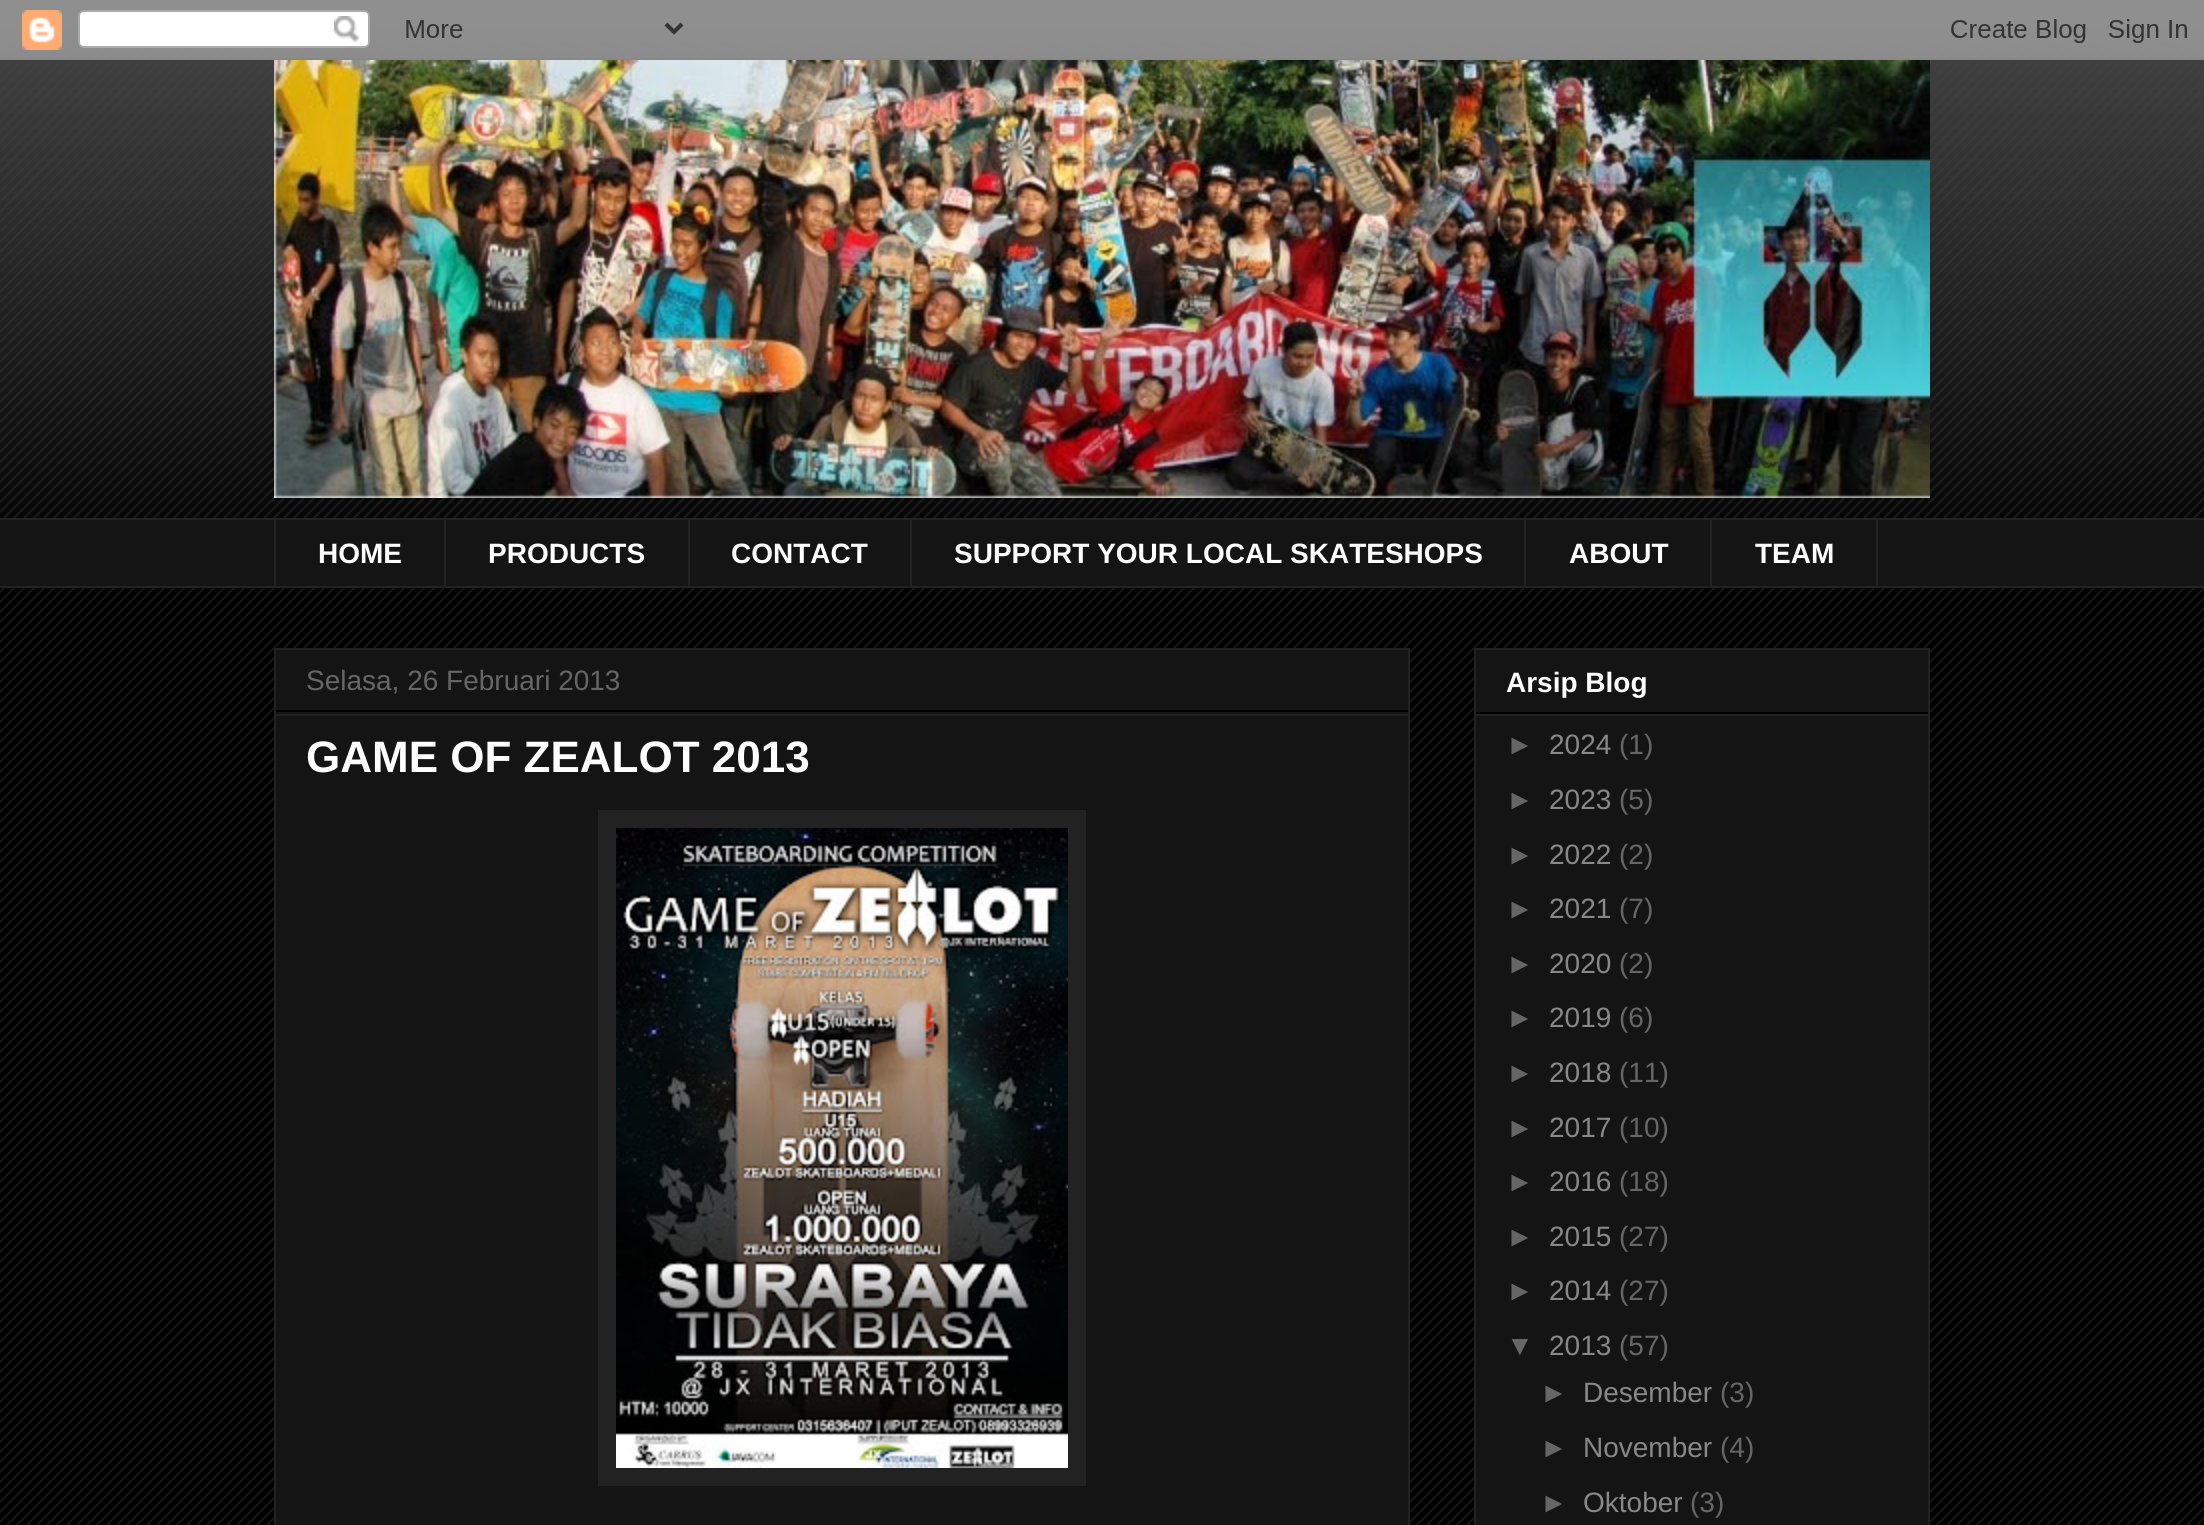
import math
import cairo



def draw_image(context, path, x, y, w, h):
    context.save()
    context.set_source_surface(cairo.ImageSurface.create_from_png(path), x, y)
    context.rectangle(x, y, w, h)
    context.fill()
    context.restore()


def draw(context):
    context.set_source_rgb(0, 0, 0)
    context.paint()
    draw_image(context, "images/1.png", 0, 26, 2204, 1499)
    draw_image(context, "images/2.png", 0, 0, 2204, 518)
    draw_image(context, "images/3.png", 0, 0, 2204, 60)
    draw_image(context, "images/4.png", 274, 60, 1656, 438)
    context.set_source_rgb(20 / 255, 20 / 255, 20 / 255)
    context.rectangle(0, 520, 2204, 66)
    context.fill()
    context.set_source_rgb(34 / 255, 34 / 255, 34 / 255)
    context.rectangle(0, 518, 2204, 2)
    context.fill()
    context.rectangle(274, 518, 2, 70)
    context.fill()
    context.rectangle(444, 518, 2, 70)
    context.fill()
    context.rectangle(688, 518, 2, 70)
    context.fill()
    context.rectangle(910, 518, 2, 70)
    context.fill()
    context.rectangle(1524, 518, 2, 70)
    context.fill()
    context.rectangle(1711, 519, 166, 68)
    context.stroke()
    context.rectangle(0, 586, 2204, 2)
    context.fill()
    context.set_source_rgb(20 / 255, 20 / 255, 20 / 255)
    context.rectangle(275, 649, 1134, 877)
    context.fill_preserve()
    context.set_source_rgb(34 / 255, 34 / 255, 34 / 255)
    context.stroke()
    context.set_source_rgb(0, 0, 0)
    context.rectangle(276, 710, 1132, 2)
    context.fill()
    context.set_source_rgb(34 / 255, 34 / 255, 34 / 255)
    context.rectangle(276, 714, 1132, 2)
    context.fill()
    context.rectangle(598, 810, 488, 676)
    context.fill()
    draw_image(context, "images/5.png", 616, 828, 452, 640)
    context.set_source_rgb(20 / 255, 20 / 255, 20 / 255)
    context.rectangle(1475, 649, 454, 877)
    context.fill_preserve()
    context.set_source_rgb(34 / 255, 34 / 255, 34 / 255)
    context.stroke()
    context.set_source_rgb(0, 0, 0)
    context.rectangle(1476, 712, 452, 2)
    context.fill()
    context.set_source_rgb(34 / 255, 34 / 255, 34 / 255)
    context.rectangle(1476, 714, 452, 2)
    context.fill()
    context.select_font_face("Liberation Sans", cairo.FontSlant.NORMAL, cairo.FontWeight.BOLD)
    context.set_font_size(28)
    context.set_source_rgb(1, 1, 1)
    context.move_to(318, 563)
    context.show_text("HOME")
    context.move_to(488, 563)
    context.show_text("PRODUCTS")
    context.move_to(731, 563)
    context.show_text("CONTACT")
    context.move_to(954, 563)
    context.show_text("SUPPORT YOUR LOCAL SKATESHOPS")
    context.move_to(1569, 563)
    context.show_text("ABOUT")
    context.move_to(1755, 563)
    context.show_text("TEAM")
    context.select_font_face("Liberation Sans")
    context.set_source_rgb(102 / 255, 102 / 255, 102 / 255)
    context.move_to(306, 690)
    context.show_text("Selasa, 26 Februari 2013")
    context.select_font_face("Liberation Sans", cairo.FontSlant.NORMAL, cairo.FontWeight.BOLD)
    context.set_font_size(44)
    context.set_source_rgb(1, 1, 1)
    context.move_to(306, 772)
    context.show_text("GAME OF ZEALOT 2013")
    context.set_font_size(28)
    context.move_to(1506, 692)
    context.show_text("Arsip Blog")
    context.select_font_face("Liberation Sans")
    context.set_source_rgb(102 / 255, 102 / 255, 102 / 255)
    context.move_to(1506, 754)
    context.show_text("►")
    context.set_source_rgb(136 / 255, 136 / 255, 136 / 255)
    context.move_to(1549, 754)
    context.show_text("2024")
    context.set_source_rgb(102 / 255, 102 / 255, 102 / 255)
    context.move_to(1619, 754)
    context.show_text("(1)")
    context.move_to(1506, 809)
    context.show_text("►")
    context.set_source_rgb(136 / 255, 136 / 255, 136 / 255)
    context.move_to(1549, 809)
    context.show_text("2023")
    context.set_source_rgb(102 / 255, 102 / 255, 102 / 255)
    context.move_to(1619, 809)
    context.show_text("(5)")
    context.move_to(1506, 864)
    context.show_text("►")
    context.set_source_rgb(136 / 255, 136 / 255, 136 / 255)
    context.move_to(1549, 864)
    context.show_text("2022")
    context.set_source_rgb(102 / 255, 102 / 255, 102 / 255)
    context.move_to(1619, 864)
    context.show_text("(2)")
    context.move_to(1506, 918)
    context.show_text("►")
    context.set_source_rgb(136 / 255, 136 / 255, 136 / 255)
    context.move_to(1549, 918)
    context.show_text("2021")
    context.set_source_rgb(102 / 255, 102 / 255, 102 / 255)
    context.move_to(1619, 918)
    context.show_text("(7)")
    context.move_to(1506, 973)
    context.show_text("►")
    context.set_source_rgb(136 / 255, 136 / 255, 136 / 255)
    context.move_to(1549, 973)
    context.show_text("2020")
    context.set_source_rgb(102 / 255, 102 / 255, 102 / 255)
    context.move_to(1619, 973)
    context.show_text("(2)")
    context.move_to(1506, 1027)
    context.show_text("►")
    context.set_source_rgb(136 / 255, 136 / 255, 136 / 255)
    context.move_to(1549, 1027)
    context.show_text("2019")
    context.set_source_rgb(102 / 255, 102 / 255, 102 / 255)
    context.move_to(1619, 1027)
    context.show_text("(6)")
    context.move_to(1506, 1082)
    context.show_text("►")
    context.set_source_rgb(136 / 255, 136 / 255, 136 / 255)
    context.move_to(1549, 1082)
    context.show_text("2018")
    context.set_source_rgb(102 / 255, 102 / 255, 102 / 255)
    context.move_to(1619, 1082)
    context.show_text("(11)")
    context.move_to(1506, 1137)
    context.show_text("►")
    context.set_source_rgb(136 / 255, 136 / 255, 136 / 255)
    context.move_to(1549, 1137)
    context.show_text("2017")
    context.set_source_rgb(102 / 255, 102 / 255, 102 / 255)
    context.move_to(1619, 1137)
    context.show_text("(10)")
    context.move_to(1506, 1191)
    context.show_text("►")
    context.set_source_rgb(136 / 255, 136 / 255, 136 / 255)
    context.move_to(1549, 1191)
    context.show_text("2016")
    context.set_source_rgb(102 / 255, 102 / 255, 102 / 255)
    context.move_to(1619, 1191)
    context.show_text("(18)")
    context.move_to(1506, 1246)
    context.show_text("►")
    context.set_source_rgb(136 / 255, 136 / 255, 136 / 255)
    context.move_to(1549, 1246)
    context.show_text("2015")
    context.set_source_rgb(102 / 255, 102 / 255, 102 / 255)
    context.move_to(1619, 1246)
    context.show_text("(27)")
    context.move_to(1506, 1300)
    context.show_text("►")
    context.set_source_rgb(136 / 255, 136 / 255, 136 / 255)
    context.move_to(1549, 1300)
    context.show_text("2014")
    context.set_source_rgb(102 / 255, 102 / 255, 102 / 255)
    context.move_to(1619, 1300)
    context.show_text("(27)")
    context.move_to(1506, 1355)
    context.show_text("▼")
    context.set_source_rgb(136 / 255, 136 / 255, 136 / 255)
    context.move_to(1549, 1355)
    context.show_text("2013")
    context.set_source_rgb(102 / 255, 102 / 255, 102 / 255)
    context.move_to(1619, 1355)
    context.show_text("(57)")
    context.move_to(1540, 1402)
    context.show_text("►")
    context.set_source_rgb(136 / 255, 136 / 255, 136 / 255)
    context.move_to(1583, 1402)
    context.show_text("Desember")
    context.set_source_rgb(102 / 255, 102 / 255, 102 / 255)
    context.move_to(1720, 1402)
    context.show_text("(3)")
    context.move_to(1540, 1457)
    context.show_text("►")
    context.set_source_rgb(136 / 255, 136 / 255, 136 / 255)
    context.move_to(1583, 1457)
    context.show_text("November")
    context.set_source_rgb(102 / 255, 102 / 255, 102 / 255)
    context.move_to(1720, 1457)
    context.show_text("(4)")
    context.move_to(1540, 1512)
    context.show_text("►")
    context.set_source_rgb(136 / 255, 136 / 255, 136 / 255)
    context.move_to(1583, 1512)
    context.show_text("Oktober")
    context.set_source_rgb(102 / 255, 102 / 255, 102 / 255)
    context.move_to(1690, 1512)
    context.show_text("(3)")


surface = cairo.ImageSurface(cairo.Format.RGB24, 2204, 1525)
context = cairo.Context(surface)
options = cairo.FontOptions()
options.set_hint_metrics(cairo.HintMetrics.OFF)
options.set_hint_style(cairo.HintStyle.NONE)
context.set_font_options(options)
context.set_miter_limit(4)
draw(context)
surface.write_to_png("out.png")
